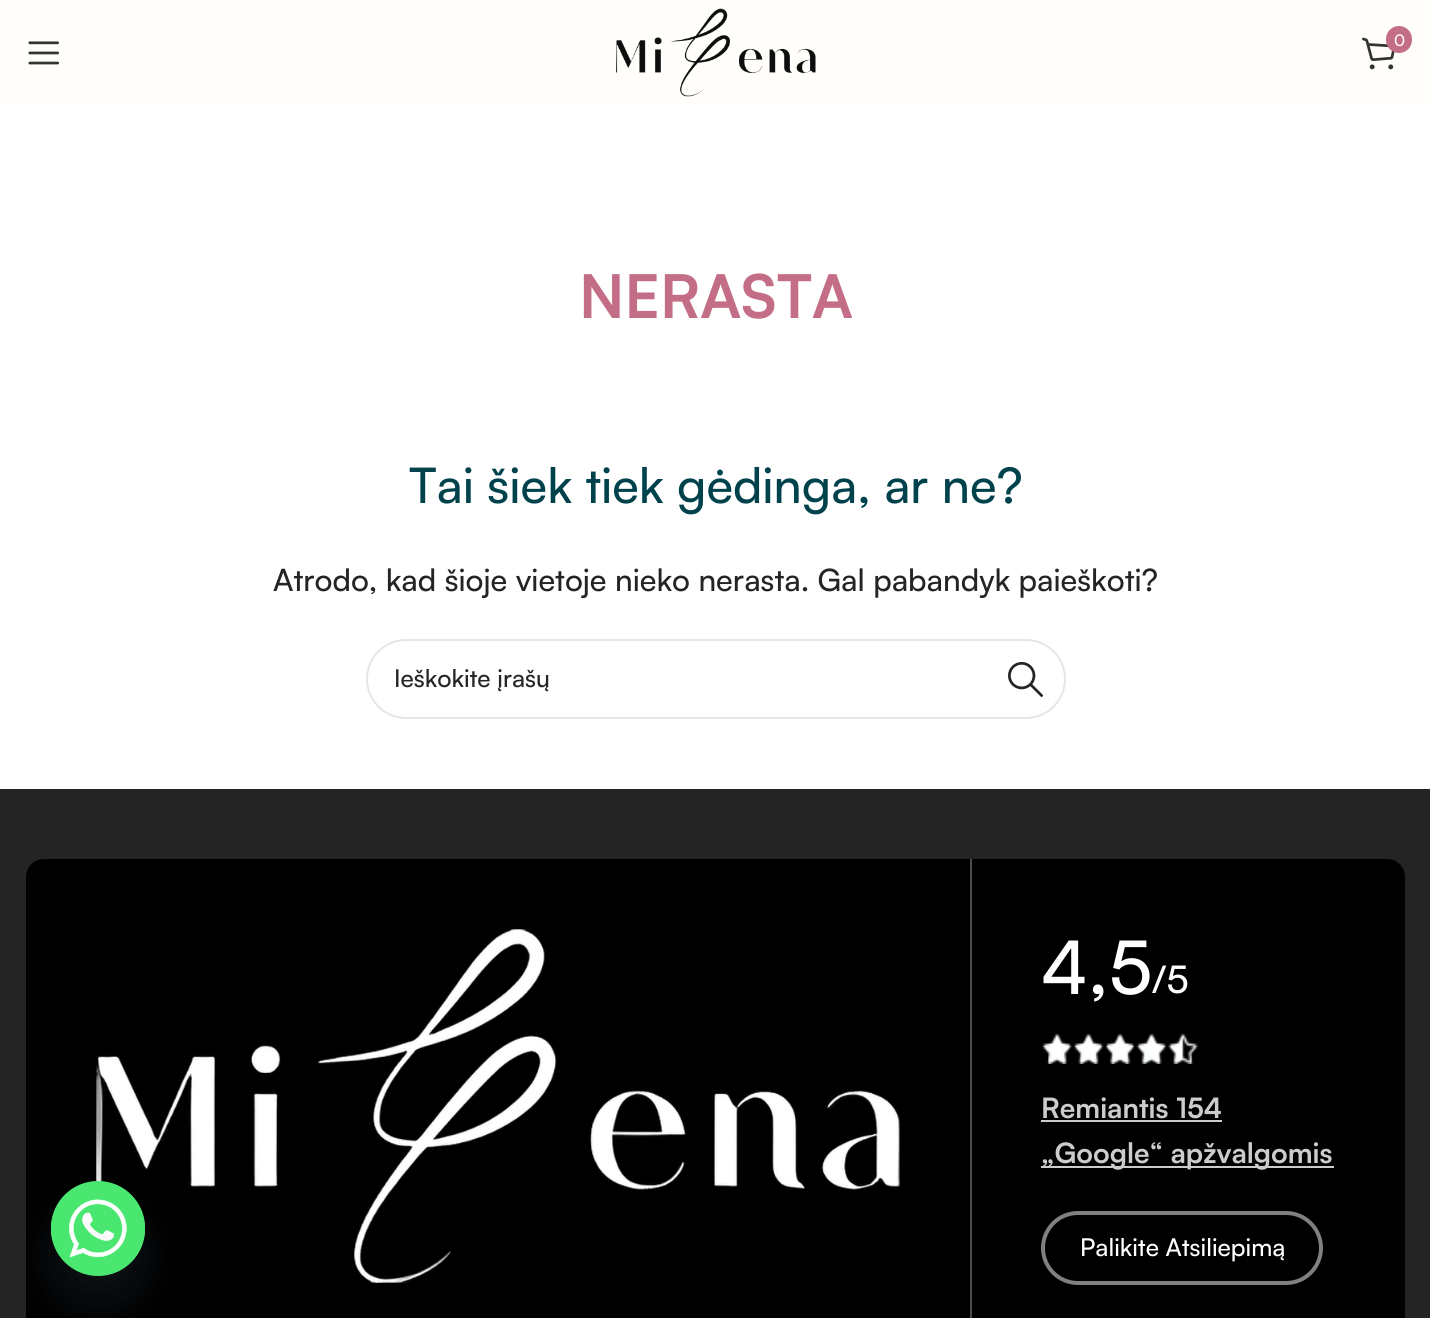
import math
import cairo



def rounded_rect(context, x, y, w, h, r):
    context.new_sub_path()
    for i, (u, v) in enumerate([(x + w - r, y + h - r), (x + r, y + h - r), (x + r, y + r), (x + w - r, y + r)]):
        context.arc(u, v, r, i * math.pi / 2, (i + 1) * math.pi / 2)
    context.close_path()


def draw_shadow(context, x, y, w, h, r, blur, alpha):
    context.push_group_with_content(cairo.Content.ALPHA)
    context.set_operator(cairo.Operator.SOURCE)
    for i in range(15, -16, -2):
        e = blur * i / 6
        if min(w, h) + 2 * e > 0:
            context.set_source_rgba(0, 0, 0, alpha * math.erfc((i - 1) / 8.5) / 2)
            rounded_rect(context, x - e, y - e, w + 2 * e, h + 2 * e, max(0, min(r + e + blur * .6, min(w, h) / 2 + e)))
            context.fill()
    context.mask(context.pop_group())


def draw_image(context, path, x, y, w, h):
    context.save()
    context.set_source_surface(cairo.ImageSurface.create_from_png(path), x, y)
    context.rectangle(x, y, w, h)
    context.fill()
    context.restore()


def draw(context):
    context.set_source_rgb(1, 1, 1)
    context.paint()
    context.set_source_rgb(36 / 255, 36 / 255, 36 / 255)
    context.rectangle(0, 789, 1430, 529)
    context.fill()
    context.set_source_rgb(0, 0, 0)
    rounded_rect(context, 26, 859, 1379, 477, 18)
    context.fill()
    draw_image(context, "images/6.png", 96, 929, 804, 354)
    context.set_source_rgb(73 / 255, 104 / 255, 126 / 255)
    draw_shadow(context, 51, 1209, 94, 95, 47, 21, 0.16)
    context.set_source_rgb(73 / 255, 230 / 255, 112 / 255)
    rounded_rect(context, 51, 1181, 94, 95, 47)
    context.fill()
    draw_image(context, "images/1.png", 51, 1181, 94, 95)
    context.set_source_rgb(1, 254 / 255, 250 / 255)
    context.rectangle(0, 0, 1430, 105)
    context.fill()
    draw_image(context, "images/2.png", 28, 41, 31, 24)
    draw_image(context, "images/3.png", 616, 8, 200, 89)
    draw_image(context, "images/4.png", 1362, 37, 33, 33)
    context.set_source_rgb(196 / 255, 109 / 255, 134 / 255)
    rounded_rect(context, 1386, 26, 26, 27, 13)
    context.fill()
    rounded_rect(context, 367, 640, 698, 78, 39)
    context.set_source_rgb(230 / 255, 230 / 255, 230 / 255)
    context.stroke()
    draw_image(context, "images/5.png", 1008, 661, 35, 36)
    context.set_source_rgb(77 / 255, 77 / 255, 77 / 255)
    context.rectangle(970, 859, 2, 459)
    context.fill()
    draw_image(context, "images/7.png", 1042, 1034, 156, 30)
    context.set_source_rgb(204 / 255, 204 / 255, 204 / 255)
    context.rectangle(1041, 1120, 181, 2)
    context.fill()
    context.rectangle(1041, 1166, 293, 2)
    context.fill()
    rounded_rect(context, 1043, 1213, 278, 70, 35)
    context.set_source_rgb(128 / 255, 128 / 255, 128 / 255)
    context.set_line_width(4)
    context.stroke()
    context.select_font_face("Satoshi Medium")
    context.set_font_size(16)
    context.set_source_rgb(1, 1, 1)
    context.move_to(1394, 46)
    context.show_text("0")
    context.select_font_face("Satoshi", cairo.FontSlant.NORMAL, cairo.FontWeight.BOLD)
    context.set_font_size(60)
    context.set_source_rgb(196 / 255, 109 / 255, 134 / 255)
    context.move_to(579, 318)
    context.show_text("NERASTA")
    context.select_font_face("Satoshi Medium")
    context.set_font_size(49)
    context.set_source_rgb(0, 66 / 255, 76 / 255)
    context.move_to(409, 503)
    context.show_text("Tai šiek tiek gėdinga, ar ne?")
    context.set_font_size(30.8)
    context.set_source_rgb(36 / 255, 36 / 255, 36 / 255)
    context.move_to(273, 591)
    context.show_text("Atrodo, kad šioje vietoje nieko nerasta. Gal pabandyk paieškoti?")
    context.set_font_size(24.5)
    context.move_to(394, 687)
    context.show_text("Ieškokite įrašų")
    context.set_font_size(74)
    context.set_source_rgb(1, 1, 1)
    context.move_to(1041, 994)
    context.show_text("4,5")
    context.set_font_size(38)
    context.move_to(1152, 993)
    context.show_text("/5")
    context.select_font_face("Satoshi", cairo.FontSlant.NORMAL, cairo.FontWeight.BOLD)
    context.set_font_size(28)
    context.set_source_rgb(204 / 255, 204 / 255, 204 / 255)
    context.move_to(1041, 1118)
    context.show_text("Remiantis 154")
    context.move_to(1041, 1163)
    context.show_text("„Google“ apžvalgomis")
    context.select_font_face("Satoshi Medium")
    context.set_font_size(24.5)
    context.set_source_rgb(1, 1, 1)
    context.move_to(1080, 1256)
    context.show_text("Palikite Atsiliepimą")


surface = cairo.ImageSurface(cairo.Format.RGB24, 1430, 1318)
context = cairo.Context(surface)
options = cairo.FontOptions()
options.set_hint_metrics(cairo.HintMetrics.OFF)
options.set_hint_style(cairo.HintStyle.NONE)
context.set_font_options(options)
context.set_miter_limit(4)
draw(context)
surface.write_to_png("out.png")
